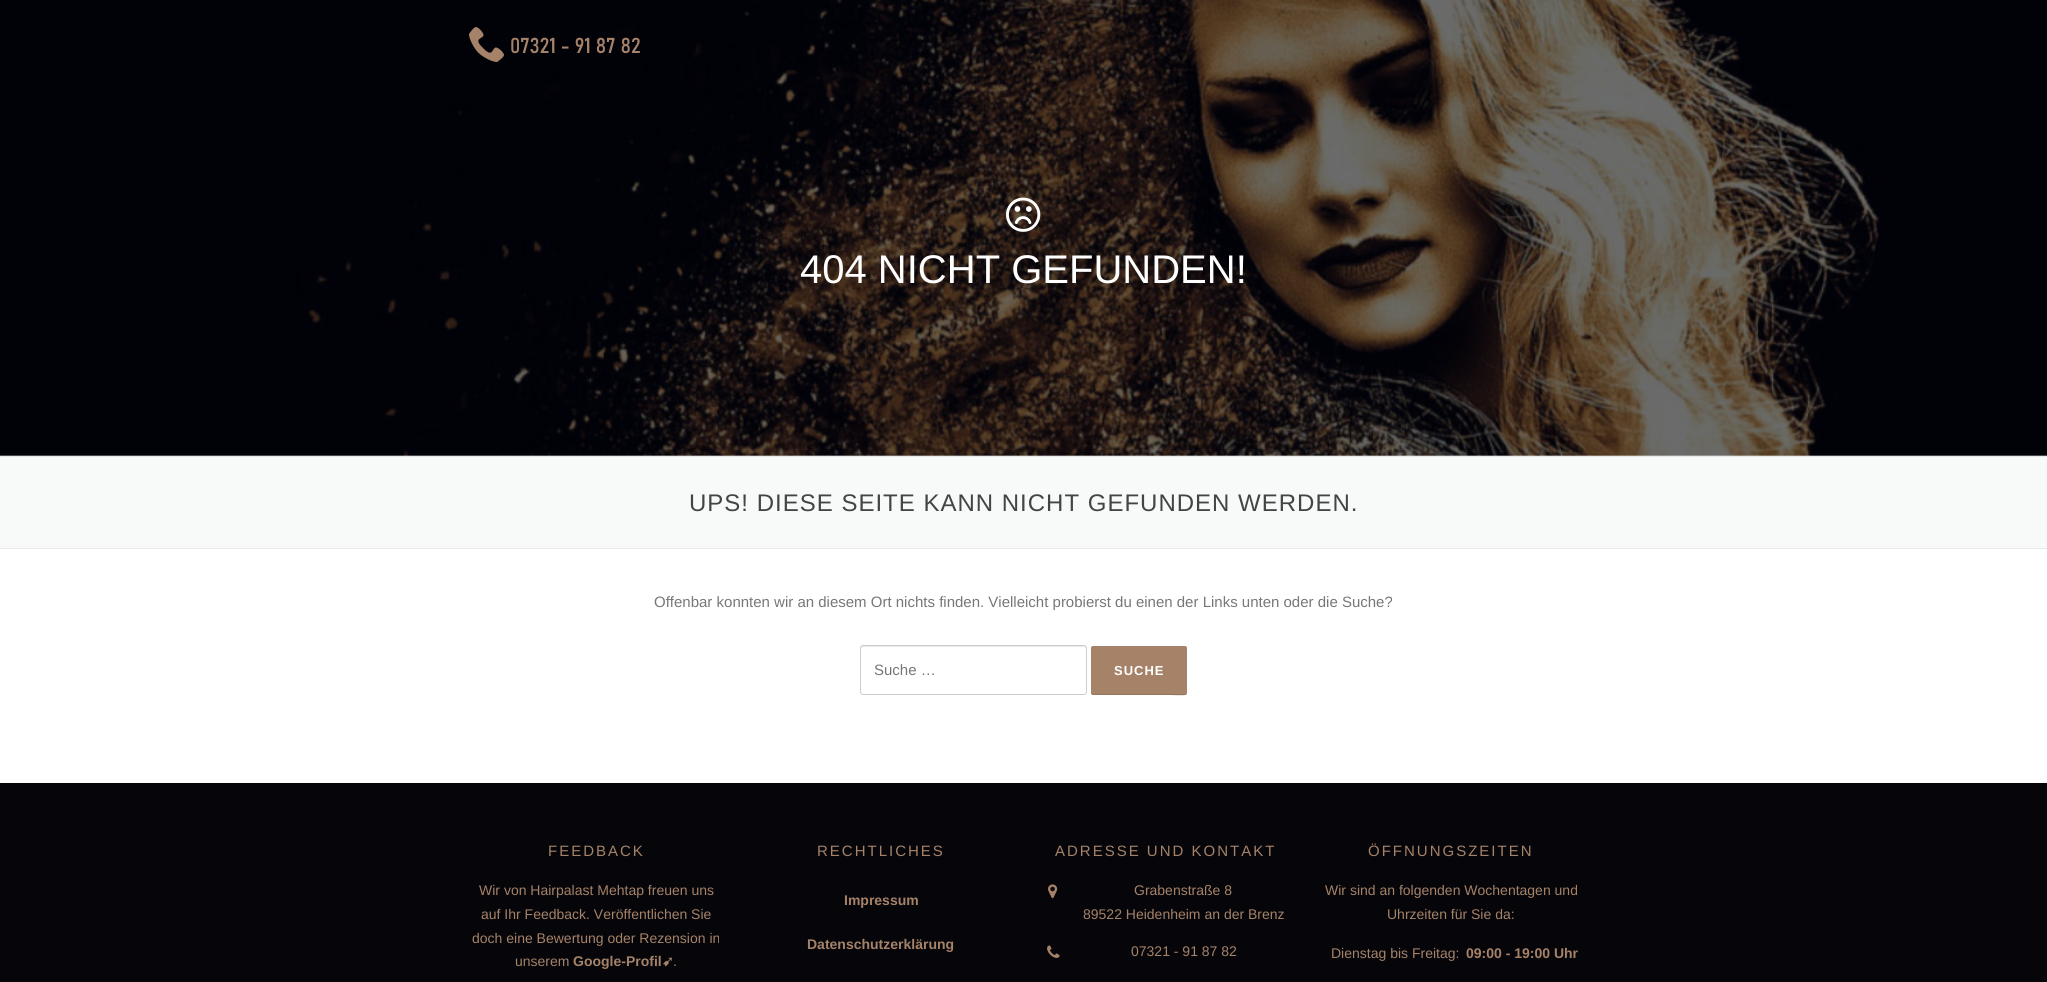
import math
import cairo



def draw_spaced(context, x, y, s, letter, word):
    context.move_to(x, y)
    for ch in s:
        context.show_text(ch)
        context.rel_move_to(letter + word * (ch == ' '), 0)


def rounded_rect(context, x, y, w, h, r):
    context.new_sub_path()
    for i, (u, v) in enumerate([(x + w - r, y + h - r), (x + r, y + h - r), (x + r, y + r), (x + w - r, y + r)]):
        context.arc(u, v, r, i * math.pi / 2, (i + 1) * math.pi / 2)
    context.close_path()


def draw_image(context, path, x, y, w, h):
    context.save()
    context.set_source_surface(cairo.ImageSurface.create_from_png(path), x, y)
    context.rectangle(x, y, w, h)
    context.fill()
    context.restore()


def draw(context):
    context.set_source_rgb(1, 1, 1)
    context.paint()
    draw_image(context, "images/2.png", 0, 0, 2047, 456)
    draw_image(context, "images/1.png", 469, 27, 171, 35)
    draw_image(context, "images/3.png", 1006, 197, 35, 35)
    context.set_source_rgb(248 / 255, 249 / 255, 249 / 255)
    context.rectangle(0, 457, 2047, 91)
    context.fill()
    context.set_source_rgb(233 / 255, 233 / 255, 233 / 255)
    context.rectangle(0, 456, 2047, 1)
    context.fill()
    context.rectangle(0, 548, 2047, 1)
    context.fill()
    context.set_source_rgb(235 / 255, 235 / 255, 235 / 255)
    context.new_path()
    context.move_to(863, 647)
    context.line_to(1084, 647)
    context.curve_to(1085, 647, 1086, 648, 1086, 649)
    context.curve_to(1086, 648, 1086, 646, 1084, 646)
    context.line_to(862, 646)
    context.curve_to(861, 647, 861, 648, 861, 649)
    context.curve_to(861, 648, 862, 647, 863, 647)
    context.close_path()
    context.fill()
    rounded_rect(context, 860.5, 645.5, 226, 49, 2.5)
    context.set_source_rgb(204 / 255, 204 / 255, 204 / 255)
    context.set_line_width(1)
    context.stroke()
    context.set_source_rgb(165 / 255, 130 / 255, 104 / 255)
    rounded_rect(context, 1091, 646, 96, 49, 2)
    context.fill()
    context.set_source_rgba(0, 0, 0, 0.1)
    context.new_path()
    context.move_to(1091, 692)
    context.curve_to(1091, 693, 1091, 695, 1093, 695)
    context.line_to(1170, 695)
    context.curve_to(1171, 695, 1187, 699, 1187, 692)
    context.curve_to(1187, 693, 1186, 694, 1185, 694)
    context.line_to(1093, 694)
    context.curve_to(1092, 694, 1091, 693, 1091, 692)
    context.close_path()
    context.fill()
    context.set_source_rgb(6 / 255, 6 / 255, 10 / 255)
    context.rectangle(0, 783, 2047, 199)
    context.fill()
    draw_image(context, "images/4.png", 1048, 884, 10, 15)
    draw_image(context, "images/5.png", 1047, 945, 13, 13)
    context.select_font_face("Liberation Sans")
    context.set_font_size(40)
    context.set_source_rgb(1, 1, 1)
    context.move_to(800, 283)
    context.show_text("404 NICHT GEFUNDEN!")
    context.set_font_size(24)
    context.set_source_rgb(68 / 255, 68 / 255, 68 / 255)
    draw_spaced(context, 689, 511, "UPS! DIESE SEITE KANN NICHT GEFUNDEN WERDEN.", 1, 0)
    context.set_font_size(15)
    context.set_source_rgb(119 / 255, 119 / 255, 119 / 255)
    context.move_to(654, 607)
    context.show_text("Offenbar konnten wir an diesem Ort nichts finden. Vielleicht probierst du einen der Links unten oder die Suche?")
    context.move_to(874, 675)
    context.show_text("Suche …")
    context.select_font_face("Liberation Sans", cairo.FontSlant.NORMAL, cairo.FontWeight.BOLD)
    context.set_font_size(13)
    context.set_source_rgb(1, 1, 1)
    draw_spaced(context, 1114, 675, "SUCHE", 1, 0)
    context.select_font_face("Liberation Sans")
    context.set_font_size(15)
    context.set_source_rgb(165 / 255, 130 / 255, 104 / 255)
    draw_spaced(context, 548, 856, "FEEDBACK", 2, 0)
    context.set_font_size(14)
    context.move_to(479, 895)
    context.show_text("Wir von Hairpalast Mehtap freuen uns")
    context.move_to(481, 919)
    context.show_text("auf Ihr Feedback. Veröffentlichen Sie")
    context.move_to(472, 943)
    context.show_text("doch eine Bewertung oder Rezension in")
    context.move_to(515, 966)
    context.show_text("unserem")
    context.select_font_face("Liberation Sans", cairo.FontSlant.NORMAL, cairo.FontWeight.BOLD)
    context.move_to(573, 966)
    context.show_text("Google-Profil")
    context.select_font_face("DejaVu Sans", cairo.FontSlant.NORMAL, cairo.FontWeight.BOLD)
    context.move_to(662, 966)
    context.show_text("➹")
    context.select_font_face("Liberation Sans")
    context.move_to(673, 966)
    context.show_text(".")
    context.set_font_size(15)
    draw_spaced(context, 817, 856, "RECHTLICHES", 2, 0)
    context.select_font_face("Liberation Sans", cairo.FontSlant.NORMAL, cairo.FontWeight.BOLD)
    context.set_font_size(14)
    context.move_to(844, 905)
    context.show_text("Impressum")
    context.move_to(807, 949)
    context.show_text("Datenschutzerklärung")
    context.select_font_face("Liberation Sans")
    context.set_font_size(15)
    draw_spaced(context, 1055, 856, "ADRESSE UND KONTAKT", 2, 0)
    context.set_font_size(14)
    context.move_to(1134, 895)
    context.show_text("Grabenstraße 8")
    context.move_to(1083, 919)
    context.show_text("89522 Heidenheim an der Brenz")
    context.move_to(1131, 956)
    context.show_text("07321 - 91 87 82")
    context.set_font_size(15)
    draw_spaced(context, 1368, 856, "ÖFFNUNGSZEITEN", 2, 0)
    context.set_font_size(14)
    context.move_to(1325, 895)
    context.show_text("Wir sind an folgenden Wochentagen und")
    context.move_to(1387, 919)
    context.show_text("Uhrzeiten für Sie da:")
    context.move_to(1331, 958)
    context.show_text("Dienstag bis Freitag:")
    context.select_font_face("Liberation Sans", cairo.FontSlant.NORMAL, cairo.FontWeight.BOLD)
    context.move_to(1466, 958)
    context.show_text("09:00 - 19:00 Uhr")


surface = cairo.ImageSurface(cairo.Format.RGB24, 2047, 982)
context = cairo.Context(surface)
options = cairo.FontOptions()
options.set_hint_metrics(cairo.HintMetrics.OFF)
options.set_hint_style(cairo.HintStyle.NONE)
context.set_font_options(options)
context.set_miter_limit(4)
draw(context)
surface.write_to_png("out.png")
